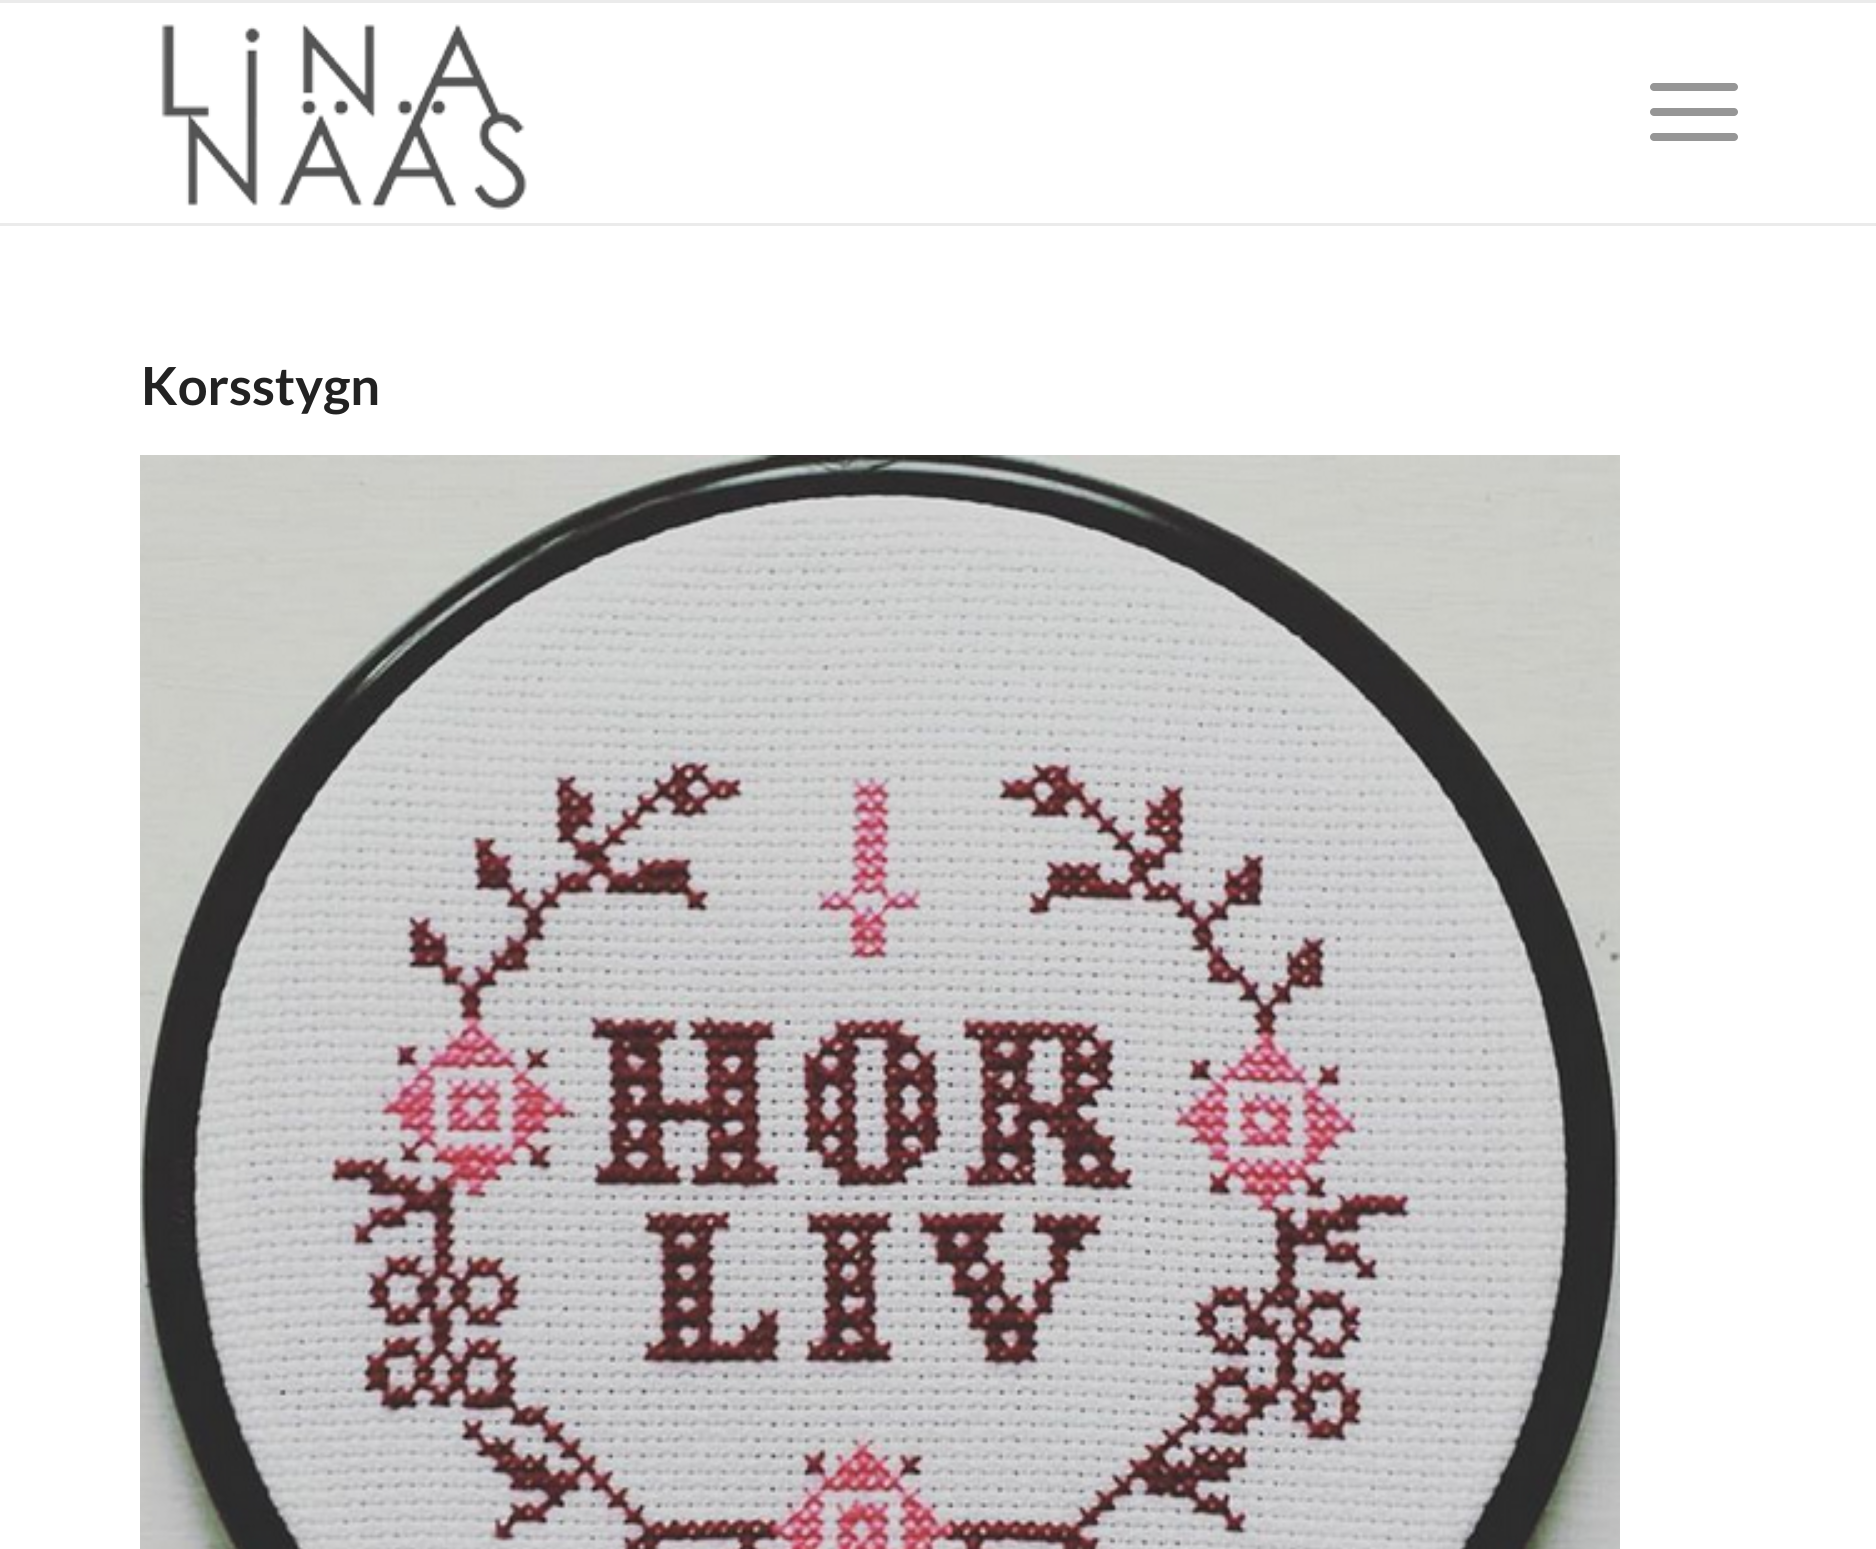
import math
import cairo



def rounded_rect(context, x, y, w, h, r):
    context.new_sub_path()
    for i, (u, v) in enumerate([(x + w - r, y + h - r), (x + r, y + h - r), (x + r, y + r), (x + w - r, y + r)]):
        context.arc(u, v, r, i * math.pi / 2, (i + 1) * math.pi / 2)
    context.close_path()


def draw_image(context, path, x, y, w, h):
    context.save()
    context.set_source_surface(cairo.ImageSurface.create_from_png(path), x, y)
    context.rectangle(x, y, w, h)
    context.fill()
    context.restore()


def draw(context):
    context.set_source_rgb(1, 1, 1)
    context.paint()
    context.set_source_rgb(235 / 255, 235 / 255, 235 / 255)
    context.rectangle(0, 0, 1876, 3)
    context.fill()
    context.rectangle(0, 223, 1876, 3)
    context.fill()
    draw_image(context, "images/1.png", 161, 24, 366, 186)
    context.set_source_rgb(150 / 255, 150 / 255, 150 / 255)
    rounded_rect(context, 1650, 108, 88, 8, 4)
    context.fill()
    rounded_rect(context, 1650, 83, 88, 8, 4)
    context.fill()
    rounded_rect(context, 1650, 133, 88, 8, 4)
    context.fill()
    draw_image(context, "images/2.png", 140, 455, 1480, 1094)
    context.select_font_face("Lato", cairo.FontSlant.NORMAL, cairo.FontWeight.BOLD)
    context.set_font_size(52.5)
    context.set_source_rgb(34 / 255, 34 / 255, 34 / 255)
    context.move_to(141, 405)
    context.show_text("Korsstygn")


surface = cairo.ImageSurface(cairo.Format.RGB24, 1876, 1549)
context = cairo.Context(surface)
options = cairo.FontOptions()
options.set_hint_metrics(cairo.HintMetrics.OFF)
options.set_hint_style(cairo.HintStyle.NONE)
context.set_font_options(options)
context.set_miter_limit(4)
draw(context)
surface.write_to_png("out.png")
